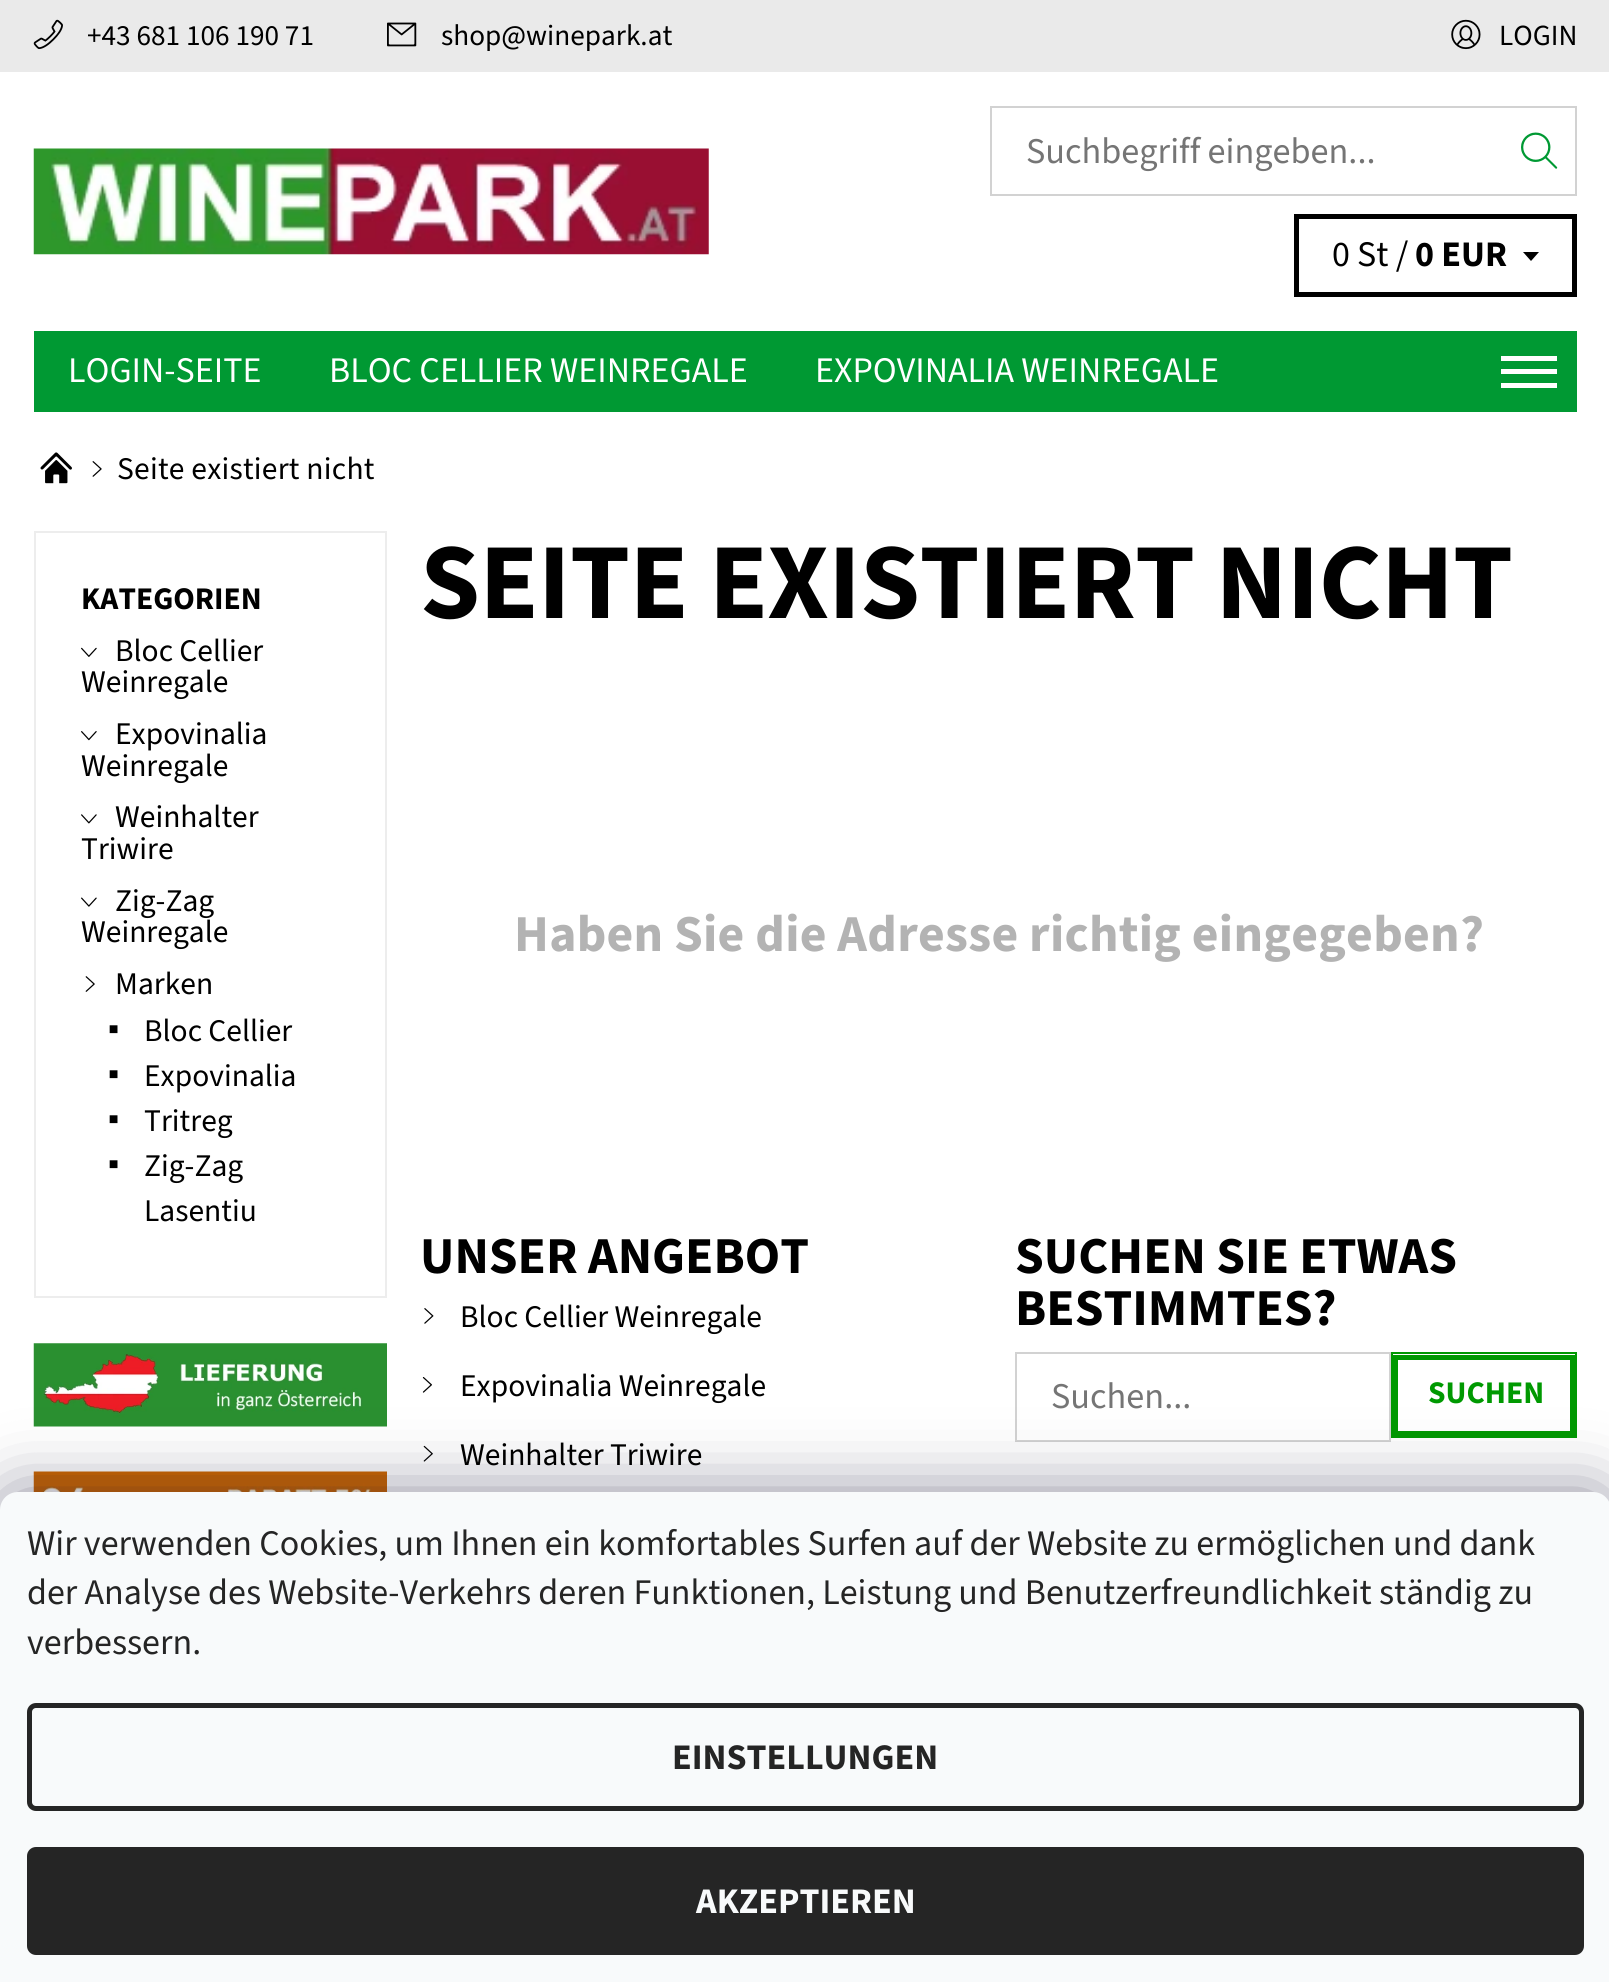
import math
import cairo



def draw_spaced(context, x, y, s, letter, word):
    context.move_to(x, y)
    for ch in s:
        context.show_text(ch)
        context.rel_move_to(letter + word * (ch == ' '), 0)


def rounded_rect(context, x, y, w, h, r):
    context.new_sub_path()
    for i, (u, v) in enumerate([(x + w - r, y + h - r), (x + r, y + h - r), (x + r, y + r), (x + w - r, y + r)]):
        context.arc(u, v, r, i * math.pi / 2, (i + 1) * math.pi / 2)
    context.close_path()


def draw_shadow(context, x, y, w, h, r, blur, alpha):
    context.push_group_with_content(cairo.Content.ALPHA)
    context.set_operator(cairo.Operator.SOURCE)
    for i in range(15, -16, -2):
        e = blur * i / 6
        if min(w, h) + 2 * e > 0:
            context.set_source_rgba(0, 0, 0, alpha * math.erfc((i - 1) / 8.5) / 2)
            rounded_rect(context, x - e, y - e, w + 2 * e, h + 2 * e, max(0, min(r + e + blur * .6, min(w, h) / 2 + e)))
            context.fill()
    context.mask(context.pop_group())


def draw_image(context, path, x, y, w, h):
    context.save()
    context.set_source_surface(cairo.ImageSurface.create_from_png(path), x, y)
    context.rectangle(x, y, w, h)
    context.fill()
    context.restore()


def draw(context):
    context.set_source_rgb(1, 1, 1)
    context.paint()
    context.set_source_rgb(234 / 255, 234 / 255, 234 / 255)
    context.rectangle(0, 0, 1609, 72)
    context.fill()
    draw_image(context, "images/1.png", 33, 19, 30, 31)
    draw_image(context, "images/2.png", 387, 22, 30, 25)
    draw_image(context, "images/3.png", 1451, 19, 30, 31)
    draw_image(context, "images/4.png", 33, 148, 676, 107)
    context.set_source_rgb(210 / 255, 210 / 255, 210 / 255)
    context.rectangle(990, 106, 587, 2)
    context.fill()
    context.rectangle(990, 194, 513, 2)
    context.fill()
    context.rectangle(990, 106, 2, 90)
    context.fill()
    context.rectangle(1575, 106, 2, 90)
    context.fill()
    context.rectangle(1503, 194, 74, 2)
    context.fill()
    draw_image(context, "images/5.png", 1521, 132, 37, 37)
    context.rectangle(1296.5, 216.5, 278, 78)
    context.set_source_rgb(0, 0, 0)
    context.set_line_width(5)
    context.stroke()
    context.new_path()
    context.move_to(1531, 252)
    context.line_to(1539, 252)
    context.line_to(1531, 261)
    context.line_to(1523, 252)
    context.close_path()
    context.fill()
    context.set_source_rgb(0, 153 / 255, 51 / 255)
    context.rectangle(34, 331, 1543, 81)
    context.fill()
    context.set_source_rgb(1, 1, 1)
    context.rectangle(1501, 356, 56, 5)
    context.fill()
    context.rectangle(1501, 369, 56, 5)
    context.fill()
    context.rectangle(1501, 383, 56, 5)
    context.fill()
    draw_image(context, "images/6.png", 40, 452, 32, 32)
    draw_image(context, "images/7.png", 92, 461, 10, 16)
    context.rectangle(35, 532, 351, 765)
    context.set_source_rgb(237 / 255, 237 / 255, 237 / 255)
    context.set_line_width(2)
    context.stroke()
    draw_image(context, "images/8.png", 81, 647, 16, 10)
    draw_image(context, "images/9.png", 81, 731, 16, 10)
    draw_image(context, "images/10.png", 81, 814, 16, 10)
    draw_image(context, "images/11.png", 81, 897, 16, 10)
    draw_image(context, "images/12.png", 85, 976, 10, 16)
    draw_image(context, "images/13.png", 33, 1343, 354, 84)
    draw_image(context, "images/14.png", 33, 1471, 354, 21)
    draw_image(context, "images/15.png", 424, 1308, 10, 16)
    draw_image(context, "images/16.png", 422, 1377, 10, 16)
    draw_image(context, "images/17.png", 423, 1445, 10, 17)
    context.rectangle(1016, 1353, 374, 88)
    context.set_source_rgb(210 / 255, 210 / 255, 210 / 255)
    context.stroke()
    context.rectangle(1395.5, 1357.5, 177, 76)
    context.set_source_rgb(0, 153 / 255, 1 / 255)
    context.set_line_width(5)
    context.stroke()
    context.rectangle(1392, 1353, 184, 84)
    context.set_line_width(2)
    context.stroke()
    context.set_source_rgb(27 / 255, 25 / 255, 57 / 255)
    draw_shadow(context, 0, 1492, 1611, 490, 18, 34, 0.5)
    context.set_source_rgb(248 / 255, 250 / 255, 251 / 255)
    context.new_path()
    context.move_to(18, 1492)
    context.line_to(1593, 1492)
    context.curve_to(1603, 1492, 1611, 1500, 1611, 1510)
    context.line_to(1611, 1982)
    context.line_to(0, 1982)
    context.line_to(0, 1510)
    context.curve_to(0, 1500, 8, 1492, 18, 1492)
    context.close_path()
    context.fill()
    rounded_rect(context, 29.5, 1705.5, 1552, 103, 6.5)
    context.set_source_rgb(37 / 255, 37 / 255, 37 / 255)
    context.set_line_width(5)
    context.stroke()
    rounded_rect(context, 27, 1847, 1557, 108, 9)
    context.fill()
    context.select_font_face("Source Sans 3")
    context.set_font_size(29.25)
    context.set_source_rgb(0, 0, 0)
    context.move_to(87, 45)
    context.show_text("+43 681 106 190 71")
    context.move_to(441, 45)
    context.show_text("shop@winepark.at")
    context.move_to(1499, 45)
    context.show_text("LOGIN")
    context.set_font_size(36.25)
    context.set_source_rgb(117 / 255, 117 / 255, 117 / 255)
    context.move_to(1026, 163)
    context.show_text("Suchbegriff eingeben...")
    context.set_font_size(36)
    context.set_source_rgb(0, 0, 0)
    context.move_to(1332, 266)
    context.show_text("0 St /")
    context.select_font_face("Source Sans 3", cairo.FontSlant.NORMAL, cairo.FontWeight.BOLD)
    context.move_to(1415, 266)
    context.show_text("0 EUR")
    context.select_font_face("Source Sans 3")
    context.set_source_rgb(1, 1, 1)
    context.move_to(68, 382)
    context.show_text("LOGIN-SEITE")
    context.move_to(329, 382)
    context.show_text("BLOC CELLIER WEINREGALE")
    context.move_to(815, 382)
    context.show_text("EXPOVINALIA WEINREGALE")
    context.set_font_size(31.5)
    context.set_source_rgb(0, 0, 0)
    draw_spaced(context, 117, 479, "Seite existiert nicht", 0.25, 0)
    context.select_font_face("Source Sans 3", cairo.FontSlant.NORMAL, cairo.FontWeight.BOLD)
    context.move_to(81, 609)
    context.show_text("KATEGORIEN")
    context.select_font_face("Source Sans 3")
    context.move_to(115, 661)
    context.show_text("Bloc Cellier")
    context.move_to(81, 692)
    context.show_text("Weinregale")
    context.move_to(115, 744)
    context.show_text("Expovinalia")
    context.move_to(81, 776)
    context.show_text("Weinregale")
    context.move_to(115, 827)
    context.show_text("Weinhalter")
    context.move_to(81, 859)
    context.show_text("Triwire")
    context.move_to(115, 911)
    context.show_text("Zig-Zag")
    context.move_to(81, 942)
    context.show_text("Weinregale")
    context.move_to(115, 994)
    context.show_text("Marken")
    context.select_font_face("Liberation Serif")
    context.move_to(108, 1039)
    context.show_text("▪")
    context.select_font_face("Source Sans 3")
    context.move_to(144, 1041)
    context.show_text("Bloc Cellier")
    context.select_font_face("Liberation Serif")
    context.move_to(108, 1084)
    context.show_text("▪")
    context.select_font_face("Source Sans 3")
    context.move_to(144, 1086)
    context.show_text("Expovinalia")
    context.select_font_face("Liberation Serif")
    context.move_to(108, 1129)
    context.show_text("▪")
    context.select_font_face("Source Sans 3")
    context.move_to(144, 1131)
    context.show_text("Tritreg")
    context.select_font_face("Liberation Serif")
    context.move_to(108, 1174)
    context.show_text("▪")
    context.select_font_face("Source Sans 3")
    context.move_to(144, 1176)
    context.show_text("Zig-Zag")
    context.move_to(144, 1221)
    context.show_text("Lasentiu")
    context.select_font_face("Source Sans 3", cairo.FontSlant.NORMAL, cairo.FontWeight.BOLD)
    context.set_font_size(108)
    draw_spaced(context, 420, 618, "SEITE EXISTIERT NICHT", -0.6, 0)
    context.set_font_size(51.75)
    context.set_source_rgb(179 / 255, 179 / 255, 179 / 255)
    draw_spaced(context, 514, 951, "Haben Sie die Adresse richtig eingegeben?", 0.25, 0)
    context.set_source_rgb(0, 0, 0)
    context.move_to(420, 1273)
    context.show_text("UNSER ANGEBOT")
    context.select_font_face("Source Sans 3")
    context.set_font_size(31.5)
    context.move_to(460, 1327)
    context.show_text("Bloc Cellier Weinregale")
    context.move_to(460, 1396)
    context.show_text("Expovinalia Weinregale")
    context.move_to(460, 1465)
    context.show_text("Weinhalter Triwire")
    context.select_font_face("Source Sans 3", cairo.FontSlant.NORMAL, cairo.FontWeight.BOLD)
    context.set_font_size(51.75)
    context.move_to(1015, 1273)
    context.show_text("SUCHEN SIE ETWAS")
    context.move_to(1015, 1325)
    context.show_text("BESTIMMTES?")
    context.select_font_face("Source Sans 3")
    context.set_font_size(36.25)
    context.set_source_rgb(117 / 255, 117 / 255, 117 / 255)
    context.move_to(1051, 1408)
    context.show_text("Suchen...")
    context.select_font_face("Source Sans 3", cairo.FontSlant.NORMAL, cairo.FontWeight.BOLD)
    context.set_font_size(31.5)
    context.set_source_rgb(0, 153 / 255, 1 / 255)
    context.move_to(1428, 1403)
    context.show_text("SUCHEN")
    context.select_font_face("Source Sans 3")
    context.set_font_size(36)
    context.set_source_rgb(37 / 255, 37 / 255, 37 / 255)
    context.move_to(27, 1555)
    context.show_text("Wir verwenden Cookies, um Ihnen ein komfortables Surfen auf der Website zu ermöglichen und dank")
    context.move_to(27, 1604)
    context.show_text("der Analyse des Website-Verkehrs deren Funktionen, Leistung und Benutzerfreundlichkeit ständig zu")
    context.move_to(27, 1654)
    context.show_text("verbessern.")
    context.select_font_face("Source Sans 3", cairo.FontSlant.NORMAL, cairo.FontWeight.BOLD)
    context.move_to(672, 1769)
    context.show_text("EINSTELLUNGEN")
    context.set_source_rgb(248 / 255, 250 / 255, 251 / 255)
    context.move_to(696, 1913)
    context.show_text("AKZEPTIEREN")


surface = cairo.ImageSurface(cairo.Format.RGB24, 1609, 1982)
context = cairo.Context(surface)
options = cairo.FontOptions()
options.set_hint_metrics(cairo.HintMetrics.OFF)
options.set_hint_style(cairo.HintStyle.NONE)
context.set_font_options(options)
context.set_miter_limit(4)
draw(context)
surface.write_to_png("out.png")
